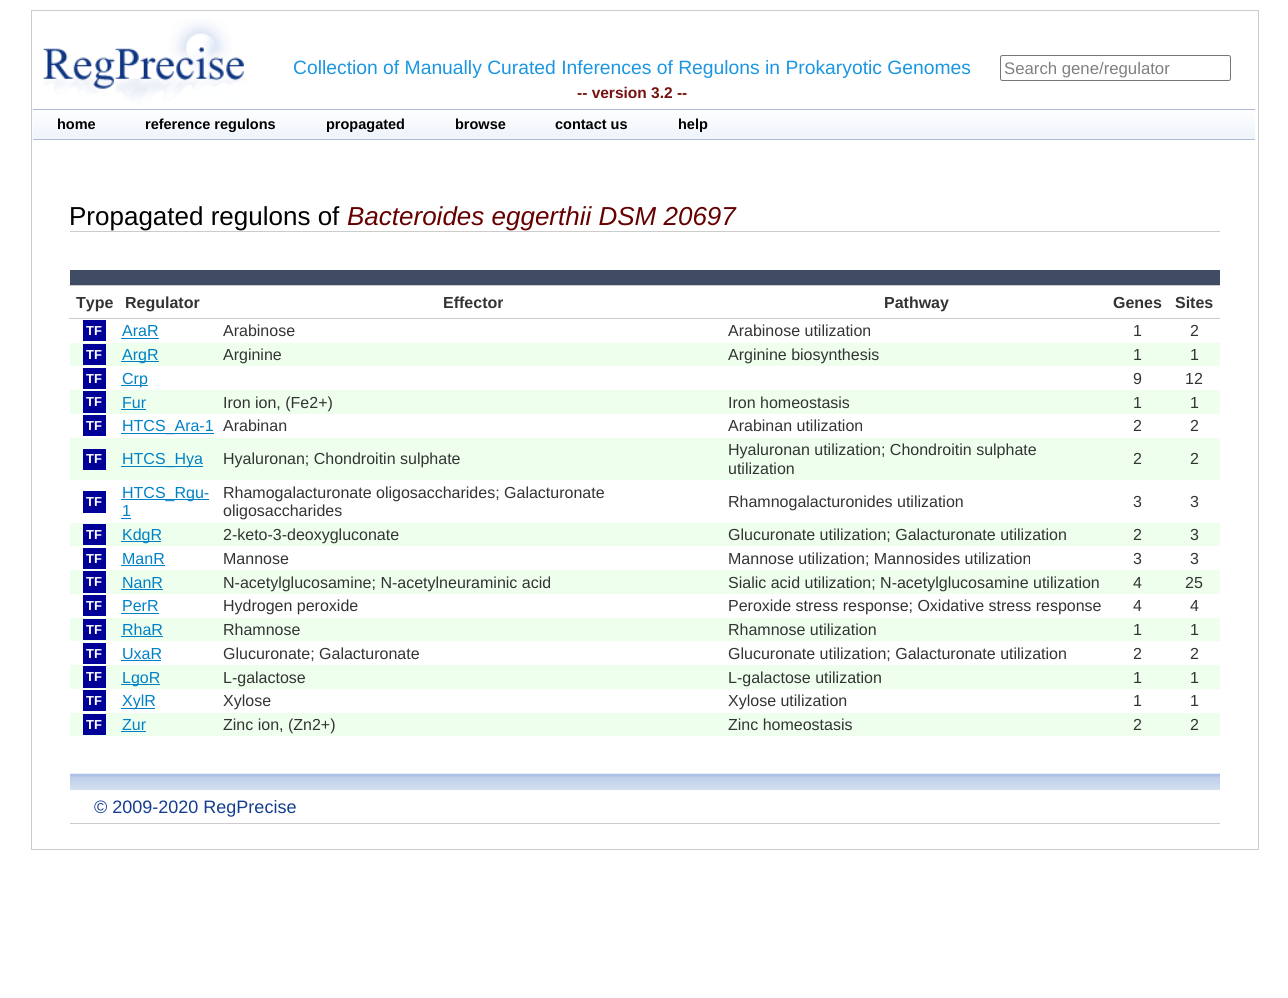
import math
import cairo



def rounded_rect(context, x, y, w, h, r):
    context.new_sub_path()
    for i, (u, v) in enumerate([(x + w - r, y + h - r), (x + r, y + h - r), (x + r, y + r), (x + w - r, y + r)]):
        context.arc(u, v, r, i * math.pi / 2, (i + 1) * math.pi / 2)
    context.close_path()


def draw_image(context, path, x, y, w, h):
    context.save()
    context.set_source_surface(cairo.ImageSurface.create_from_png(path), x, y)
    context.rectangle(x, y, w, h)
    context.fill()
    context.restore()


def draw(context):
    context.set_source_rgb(1, 1, 1)
    context.paint()
    context.rectangle(31.5, 10.5, 1227, 839)
    context.set_source_rgb(204 / 255, 204 / 255, 204 / 255)
    context.set_line_width(1)
    context.stroke()
    draw_image(context, "images/1.png", 43, 19, 204, 86)
    rounded_rect(context, 1000.5, 55.5, 230, 25, 2)
    context.set_source_rgb(118 / 255, 118 / 255, 118 / 255)
    context.stroke()
    draw_image(context, "images/2.png", 32, 110, 1223, 29)
    context.set_source_rgb(171 / 255, 185 / 255, 215 / 255)
    context.rectangle(33, 109, 1222, 1)
    context.fill()
    context.rectangle(33, 139, 1222, 1)
    context.fill()
    context.set_source_rgb(204 / 255, 204 / 255, 204 / 255)
    context.rectangle(70, 231, 1150, 1)
    context.fill()
    context.set_source_rgb(64 / 255, 76 / 255, 100 / 255)
    context.rectangle(70, 270, 1150, 15)
    context.fill()
    context.set_source_rgb(204 / 255, 204 / 255, 204 / 255)
    context.rectangle(69, 285, 1151, 1)
    context.fill()
    context.rectangle(69, 318, 1151, 1)
    context.fill()
    context.set_source_rgb(0, 0, 153 / 255)
    context.rectangle(83, 320, 23, 21)
    context.fill()
    context.set_source_rgb(0, 129 / 255, 198 / 255)
    context.rectangle(121, 338, 38, 1)
    context.fill()
    context.set_source_rgb(238 / 255, 1, 238 / 255)
    context.rectangle(70, 343, 1150, 23)
    context.fill()
    context.set_source_rgb(0, 0, 153 / 255)
    context.rectangle(83, 344, 23, 21)
    context.fill()
    context.set_source_rgb(0, 129 / 255, 198 / 255)
    context.rectangle(121, 361, 38, 1)
    context.fill()
    context.set_source_rgb(0, 0, 153 / 255)
    context.rectangle(83, 368, 23, 21)
    context.fill()
    context.set_source_rgb(0, 129 / 255, 198 / 255)
    context.rectangle(121, 385, 27, 1)
    context.fill()
    context.set_source_rgb(238 / 255, 1, 238 / 255)
    context.rectangle(70, 390, 1150, 24)
    context.fill()
    context.set_source_rgb(0, 0, 153 / 255)
    context.rectangle(83, 391, 23, 22)
    context.fill()
    context.set_source_rgb(0, 129 / 255, 198 / 255)
    context.rectangle(121, 409, 25, 1)
    context.fill()
    context.set_source_rgb(0, 0, 153 / 255)
    context.rectangle(83, 415, 23, 21)
    context.fill()
    context.set_source_rgb(0, 129 / 255, 198 / 255)
    context.rectangle(121, 433, 93, 1)
    context.fill()
    context.set_source_rgb(238 / 255, 1, 238 / 255)
    context.rectangle(70, 438, 1150, 42)
    context.fill()
    context.set_source_rgb(0, 0, 153 / 255)
    context.rectangle(83, 449, 23, 21)
    context.fill()
    context.set_source_rgb(0, 129 / 255, 198 / 255)
    context.rectangle(121, 466, 82, 1)
    context.fill()
    context.set_source_rgb(0, 0, 153 / 255)
    context.rectangle(83, 491, 23, 22)
    context.fill()
    context.set_source_rgb(0, 129 / 255, 198 / 255)
    context.rectangle(121, 499, 88, 1)
    context.fill()
    context.rectangle(121, 518, 10, 1)
    context.fill()
    context.set_source_rgb(238 / 255, 1, 238 / 255)
    context.rectangle(70, 523, 1150, 23)
    context.fill()
    context.set_source_rgb(0, 0, 153 / 255)
    context.rectangle(83, 524, 23, 21)
    context.fill()
    context.set_source_rgb(0, 129 / 255, 198 / 255)
    context.rectangle(121, 541, 40, 1)
    context.fill()
    context.set_source_rgb(0, 0, 153 / 255)
    context.rectangle(83, 548, 23, 21)
    context.fill()
    context.set_source_rgb(0, 129 / 255, 198 / 255)
    context.rectangle(121, 565, 44, 1)
    context.fill()
    context.set_source_rgb(238 / 255, 1, 238 / 255)
    context.rectangle(70, 570, 1150, 24)
    context.fill()
    context.set_source_rgb(0, 0, 153 / 255)
    context.rectangle(83, 571, 23, 22)
    context.fill()
    context.set_source_rgb(0, 129 / 255, 198 / 255)
    context.rectangle(121, 589, 42, 1)
    context.fill()
    context.set_source_rgb(0, 0, 153 / 255)
    context.rectangle(83, 595, 23, 21)
    context.fill()
    context.set_source_rgb(0, 129 / 255, 198 / 255)
    context.rectangle(121, 613, 38, 1)
    context.fill()
    context.set_source_rgb(238 / 255, 1, 238 / 255)
    context.rectangle(70, 618, 1150, 23)
    context.fill()
    context.set_source_rgb(0, 0, 153 / 255)
    context.rectangle(83, 619, 23, 21)
    context.fill()
    context.set_source_rgb(0, 129 / 255, 198 / 255)
    context.rectangle(121, 636, 42, 1)
    context.fill()
    context.set_source_rgb(0, 0, 153 / 255)
    context.rectangle(83, 643, 23, 21)
    context.fill()
    context.set_source_rgb(0, 129 / 255, 198 / 255)
    context.rectangle(121, 660, 40, 1)
    context.fill()
    context.set_source_rgb(238 / 255, 1, 238 / 255)
    context.rectangle(70, 665, 1150, 24)
    context.fill()
    context.set_source_rgb(0, 0, 153 / 255)
    context.rectangle(83, 666, 23, 22)
    context.fill()
    context.set_source_rgb(0, 129 / 255, 198 / 255)
    context.rectangle(121, 684, 39, 1)
    context.fill()
    context.set_source_rgb(0, 0, 153 / 255)
    context.rectangle(83, 690, 23, 21)
    context.fill()
    context.set_source_rgb(0, 129 / 255, 198 / 255)
    context.rectangle(121, 708, 34, 1)
    context.fill()
    context.set_source_rgb(238 / 255, 1, 238 / 255)
    context.rectangle(70, 713, 1150, 23)
    context.fill()
    context.set_source_rgb(0, 0, 153 / 255)
    context.rectangle(83, 714, 23, 21)
    context.fill()
    context.set_source_rgb(0, 129 / 255, 198 / 255)
    context.rectangle(121, 731, 25, 1)
    context.fill()
    draw_image(context, "images/3.png", 70, 773, 1150, 17)
    context.set_source_rgb(204 / 255, 204 / 255, 204 / 255)
    context.rectangle(70, 823, 1150, 1)
    context.fill()
    context.select_font_face("Liberation Sans")
    context.set_font_size(19.3)
    context.set_source_rgb(27 / 255, 150 / 255, 226 / 255)
    context.move_to(293, 74)
    context.show_text("Collection of Manually Curated Inferences of Regulons in Prokaryotic Genomes")
    context.select_font_face("Liberation Sans", cairo.FontSlant.NORMAL, cairo.FontWeight.BOLD)
    context.set_font_size(15.5)
    context.set_source_rgb(119 / 255, 17 / 255, 17 / 255)
    context.move_to(577, 98)
    context.show_text("-- version 3.2 --")
    context.select_font_face("Liberation Sans")
    context.set_font_size(16.75)
    context.set_source_rgb(128 / 255, 128 / 255, 128 / 255)
    context.move_to(1004, 74)
    context.show_text("Search gene/regulator")
    context.select_font_face("Liberation Sans", cairo.FontSlant.NORMAL, cairo.FontWeight.BOLD)
    context.set_font_size(14.5)
    context.set_source_rgb(0, 0, 0)
    context.move_to(57, 129)
    context.show_text("home")
    context.move_to(145, 129)
    context.show_text("reference regulons")
    context.move_to(326, 129)
    context.show_text("propagated")
    context.move_to(455, 129)
    context.show_text("browse")
    context.move_to(555, 129)
    context.show_text("contact us")
    context.move_to(678, 129)
    context.show_text("help")
    context.select_font_face("Liberation Sans")
    context.set_font_size(26)
    context.move_to(69, 225)
    context.show_text("Propagated regulons of")
    context.select_font_face("Liberation Sans", cairo.FontSlant.ITALIC)
    context.set_source_rgb(102 / 255, 0, 0)
    context.move_to(347, 225)
    context.show_text("Bacteroides eggerthii DSM 20697")
    context.select_font_face("Liberation Sans", cairo.FontSlant.NORMAL, cairo.FontWeight.BOLD)
    context.set_font_size(16)
    context.set_source_rgb(51 / 255, 51 / 255, 51 / 255)
    context.move_to(76, 308)
    context.show_text("Type")
    context.move_to(125, 308)
    context.show_text("Regulator")
    context.move_to(443, 308)
    context.show_text("Effector")
    context.move_to(884, 308)
    context.show_text("Pathway")
    context.move_to(1113, 308)
    context.show_text("Genes")
    context.move_to(1175, 308)
    context.show_text("Sites")
    context.set_font_size(13)
    context.set_source_rgb(1, 1, 1)
    context.move_to(86, 335)
    context.show_text("TF")
    context.select_font_face("Liberation Sans")
    context.set_font_size(16)
    context.set_source_rgb(0, 129 / 255, 198 / 255)
    context.move_to(122, 336)
    context.show_text("AraR")
    context.set_source_rgb(51 / 255, 51 / 255, 51 / 255)
    context.move_to(223, 336)
    context.show_text("Arabinose")
    context.move_to(728, 336)
    context.show_text("Arabinose utilization")
    context.move_to(1133, 336)
    context.show_text("1")
    context.move_to(1190, 336)
    context.show_text("2")
    context.select_font_face("Liberation Sans", cairo.FontSlant.NORMAL, cairo.FontWeight.BOLD)
    context.set_font_size(13)
    context.set_source_rgb(1, 1, 1)
    context.move_to(86, 359)
    context.show_text("TF")
    context.select_font_face("Liberation Sans")
    context.set_font_size(16)
    context.set_source_rgb(0, 129 / 255, 198 / 255)
    context.move_to(122, 360)
    context.show_text("ArgR")
    context.set_source_rgb(51 / 255, 51 / 255, 51 / 255)
    context.move_to(223, 360)
    context.show_text("Arginine")
    context.move_to(728, 360)
    context.show_text("Arginine biosynthesis")
    context.move_to(1133, 360)
    context.show_text("1")
    context.move_to(1190, 360)
    context.show_text("1")
    context.select_font_face("Liberation Sans", cairo.FontSlant.NORMAL, cairo.FontWeight.BOLD)
    context.set_font_size(13)
    context.set_source_rgb(1, 1, 1)
    context.move_to(86, 383)
    context.show_text("TF")
    context.select_font_face("Liberation Sans")
    context.set_font_size(16)
    context.set_source_rgb(0, 129 / 255, 198 / 255)
    context.move_to(122, 384)
    context.show_text("Crp")
    context.set_source_rgb(51 / 255, 51 / 255, 51 / 255)
    context.move_to(1133, 384)
    context.show_text("9")
    context.move_to(1185, 384)
    context.show_text("12")
    context.select_font_face("Liberation Sans", cairo.FontSlant.NORMAL, cairo.FontWeight.BOLD)
    context.set_font_size(13)
    context.set_source_rgb(1, 1, 1)
    context.move_to(86, 406)
    context.show_text("TF")
    context.select_font_face("Liberation Sans")
    context.set_font_size(16)
    context.set_source_rgb(0, 129 / 255, 198 / 255)
    context.move_to(122, 408)
    context.show_text("Fur")
    context.set_source_rgb(51 / 255, 51 / 255, 51 / 255)
    context.move_to(223, 408)
    context.show_text("Iron ion, (Fe2+)")
    context.move_to(728, 408)
    context.show_text("Iron homeostasis")
    context.move_to(1133, 408)
    context.show_text("1")
    context.move_to(1190, 408)
    context.show_text("1")
    context.select_font_face("Liberation Sans", cairo.FontSlant.NORMAL, cairo.FontWeight.BOLD)
    context.set_font_size(13)
    context.set_source_rgb(1, 1, 1)
    context.move_to(86, 430)
    context.show_text("TF")
    context.select_font_face("Liberation Sans")
    context.set_font_size(16)
    context.set_source_rgb(0, 129 / 255, 198 / 255)
    context.move_to(122, 431)
    context.show_text("HTCS_Ara-1")
    context.set_source_rgb(51 / 255, 51 / 255, 51 / 255)
    context.move_to(223, 431)
    context.show_text("Arabinan")
    context.move_to(728, 431)
    context.show_text("Arabinan utilization")
    context.move_to(1133, 431)
    context.show_text("2")
    context.move_to(1190, 431)
    context.show_text("2")
    context.select_font_face("Liberation Sans", cairo.FontSlant.NORMAL, cairo.FontWeight.BOLD)
    context.set_font_size(13)
    context.set_source_rgb(1, 1, 1)
    context.move_to(86, 463)
    context.show_text("TF")
    context.select_font_face("Liberation Sans")
    context.set_font_size(16)
    context.set_source_rgb(0, 129 / 255, 198 / 255)
    context.move_to(122, 464)
    context.show_text("HTCS_Hya")
    context.set_source_rgb(51 / 255, 51 / 255, 51 / 255)
    context.move_to(223, 464)
    context.show_text("Hyaluronan; Chondroitin sulphate")
    context.move_to(728, 455)
    context.show_text("Hyaluronan utilization; Chondroitin sulphate")
    context.move_to(728, 474)
    context.show_text("utilization")
    context.move_to(1133, 464)
    context.show_text("2")
    context.move_to(1190, 464)
    context.show_text("2")
    context.select_font_face("Liberation Sans", cairo.FontSlant.NORMAL, cairo.FontWeight.BOLD)
    context.set_font_size(13)
    context.set_source_rgb(1, 1, 1)
    context.move_to(86, 506)
    context.show_text("TF")
    context.select_font_face("Liberation Sans")
    context.set_font_size(16)
    context.set_source_rgb(0, 129 / 255, 198 / 255)
    context.move_to(122, 498)
    context.show_text("HTCS_Rgu-")
    context.move_to(122, 516)
    context.show_text("1")
    context.set_source_rgb(51 / 255, 51 / 255, 51 / 255)
    context.move_to(223, 498)
    context.show_text("Rhamogalacturonate oligosaccharides; Galacturonate")
    context.move_to(223, 516)
    context.show_text("oligosaccharides")
    context.move_to(728, 507)
    context.show_text("Rhamnogalacturonides utilization")
    context.move_to(1133, 507)
    context.show_text("3")
    context.move_to(1190, 507)
    context.show_text("3")
    context.select_font_face("Liberation Sans", cairo.FontSlant.NORMAL, cairo.FontWeight.BOLD)
    context.set_font_size(13)
    context.set_source_rgb(1, 1, 1)
    context.move_to(86, 539)
    context.show_text("TF")
    context.select_font_face("Liberation Sans")
    context.set_font_size(16)
    context.set_source_rgb(0, 129 / 255, 198 / 255)
    context.move_to(122, 540)
    context.show_text("KdgR")
    context.set_source_rgb(51 / 255, 51 / 255, 51 / 255)
    context.move_to(223, 540)
    context.show_text("2-keto-3-deoxygluconate")
    context.move_to(728, 540)
    context.show_text("Glucuronate utilization; Galacturonate utilization")
    context.move_to(1133, 540)
    context.show_text("2")
    context.move_to(1190, 540)
    context.show_text("3")
    context.select_font_face("Liberation Sans", cairo.FontSlant.NORMAL, cairo.FontWeight.BOLD)
    context.set_font_size(13)
    context.set_source_rgb(1, 1, 1)
    context.move_to(86, 563)
    context.show_text("TF")
    context.select_font_face("Liberation Sans")
    context.set_font_size(16)
    context.set_source_rgb(0, 129 / 255, 198 / 255)
    context.move_to(122, 564)
    context.show_text("ManR")
    context.set_source_rgb(51 / 255, 51 / 255, 51 / 255)
    context.move_to(223, 564)
    context.show_text("Mannose")
    context.move_to(728, 564)
    context.show_text("Mannose utilization; Mannosides utilization")
    context.move_to(1133, 564)
    context.show_text("3")
    context.move_to(1190, 564)
    context.show_text("3")
    context.select_font_face("Liberation Sans", cairo.FontSlant.NORMAL, cairo.FontWeight.BOLD)
    context.set_font_size(13)
    context.set_source_rgb(1, 1, 1)
    context.move_to(86, 586)
    context.show_text("TF")
    context.select_font_face("Liberation Sans")
    context.set_font_size(16)
    context.set_source_rgb(0, 129 / 255, 198 / 255)
    context.move_to(122, 588)
    context.show_text("NanR")
    context.set_source_rgb(51 / 255, 51 / 255, 51 / 255)
    context.move_to(223, 588)
    context.show_text("N-acetylglucosamine; N-acetylneuraminic acid")
    context.move_to(728, 588)
    context.show_text("Sialic acid utilization; N-acetylglucosamine utilization")
    context.move_to(1133, 588)
    context.show_text("4")
    context.move_to(1185, 588)
    context.show_text("25")
    context.select_font_face("Liberation Sans", cairo.FontSlant.NORMAL, cairo.FontWeight.BOLD)
    context.set_font_size(13)
    context.set_source_rgb(1, 1, 1)
    context.move_to(86, 610)
    context.show_text("TF")
    context.select_font_face("Liberation Sans")
    context.set_font_size(16)
    context.set_source_rgb(0, 129 / 255, 198 / 255)
    context.move_to(122, 611)
    context.show_text("PerR")
    context.set_source_rgb(51 / 255, 51 / 255, 51 / 255)
    context.move_to(223, 611)
    context.show_text("Hydrogen peroxide")
    context.move_to(728, 611)
    context.show_text("Peroxide stress response; Oxidative stress response")
    context.move_to(1133, 611)
    context.show_text("4")
    context.move_to(1190, 611)
    context.show_text("4")
    context.select_font_face("Liberation Sans", cairo.FontSlant.NORMAL, cairo.FontWeight.BOLD)
    context.set_font_size(13)
    context.set_source_rgb(1, 1, 1)
    context.move_to(86, 634)
    context.show_text("TF")
    context.select_font_face("Liberation Sans")
    context.set_font_size(16)
    context.set_source_rgb(0, 129 / 255, 198 / 255)
    context.move_to(122, 635)
    context.show_text("RhaR")
    context.set_source_rgb(51 / 255, 51 / 255, 51 / 255)
    context.move_to(223, 635)
    context.show_text("Rhamnose")
    context.move_to(728, 635)
    context.show_text("Rhamnose utilization")
    context.move_to(1133, 635)
    context.show_text("1")
    context.move_to(1190, 635)
    context.show_text("1")
    context.select_font_face("Liberation Sans", cairo.FontSlant.NORMAL, cairo.FontWeight.BOLD)
    context.set_font_size(13)
    context.set_source_rgb(1, 1, 1)
    context.move_to(86, 658)
    context.show_text("TF")
    context.select_font_face("Liberation Sans")
    context.set_font_size(16)
    context.set_source_rgb(0, 129 / 255, 198 / 255)
    context.move_to(122, 659)
    context.show_text("UxaR")
    context.set_source_rgb(51 / 255, 51 / 255, 51 / 255)
    context.move_to(223, 659)
    context.show_text("Glucuronate; Galacturonate")
    context.move_to(728, 659)
    context.show_text("Glucuronate utilization; Galacturonate utilization")
    context.move_to(1133, 659)
    context.show_text("2")
    context.move_to(1190, 659)
    context.show_text("2")
    context.select_font_face("Liberation Sans", cairo.FontSlant.NORMAL, cairo.FontWeight.BOLD)
    context.set_font_size(13)
    context.set_source_rgb(1, 1, 1)
    context.move_to(86, 681)
    context.show_text("TF")
    context.select_font_face("Liberation Sans")
    context.set_font_size(16)
    context.set_source_rgb(0, 129 / 255, 198 / 255)
    context.move_to(122, 683)
    context.show_text("LgoR")
    context.set_source_rgb(51 / 255, 51 / 255, 51 / 255)
    context.move_to(223, 683)
    context.show_text("L-galactose")
    context.move_to(728, 683)
    context.show_text("L-galactose utilization")
    context.move_to(1133, 683)
    context.show_text("1")
    context.move_to(1190, 683)
    context.show_text("1")
    context.select_font_face("Liberation Sans", cairo.FontSlant.NORMAL, cairo.FontWeight.BOLD)
    context.set_font_size(13)
    context.set_source_rgb(1, 1, 1)
    context.move_to(86, 705)
    context.show_text("TF")
    context.select_font_face("Liberation Sans")
    context.set_font_size(16)
    context.set_source_rgb(0, 129 / 255, 198 / 255)
    context.move_to(122, 706)
    context.show_text("XylR")
    context.set_source_rgb(51 / 255, 51 / 255, 51 / 255)
    context.move_to(223, 706)
    context.show_text("Xylose")
    context.move_to(728, 706)
    context.show_text("Xylose utilization")
    context.move_to(1133, 706)
    context.show_text("1")
    context.move_to(1190, 706)
    context.show_text("1")
    context.select_font_face("Liberation Sans", cairo.FontSlant.NORMAL, cairo.FontWeight.BOLD)
    context.set_font_size(13)
    context.set_source_rgb(1, 1, 1)
    context.move_to(86, 729)
    context.show_text("TF")
    context.select_font_face("Liberation Sans")
    context.set_font_size(16)
    context.set_source_rgb(0, 129 / 255, 198 / 255)
    context.move_to(122, 730)
    context.show_text("Zur")
    context.set_source_rgb(51 / 255, 51 / 255, 51 / 255)
    context.move_to(223, 730)
    context.show_text("Zinc ion, (Zn2+)")
    context.move_to(728, 730)
    context.show_text("Zinc homeostasis")
    context.move_to(1133, 730)
    context.show_text("2")
    context.move_to(1190, 730)
    context.show_text("2")
    context.set_font_size(18)
    context.set_source_rgb(19 / 255, 61 / 255, 145 / 255)
    context.move_to(94, 813)
    context.show_text("© 2009-2020 RegPrecise")


surface = cairo.ImageSurface(cairo.Format.RGB24, 1288, 998)
context = cairo.Context(surface)
options = cairo.FontOptions()
options.set_hint_metrics(cairo.HintMetrics.OFF)
options.set_hint_style(cairo.HintStyle.NONE)
context.set_font_options(options)
context.set_miter_limit(4)
draw(context)
surface.write_to_png("out.png")
